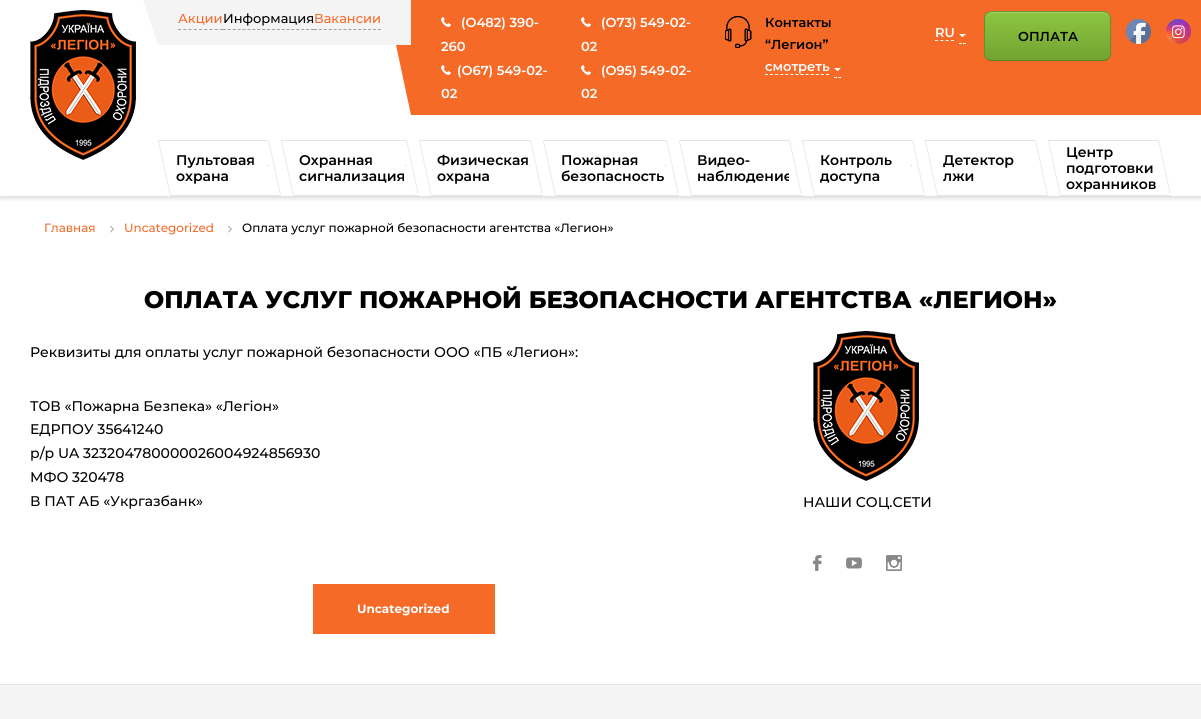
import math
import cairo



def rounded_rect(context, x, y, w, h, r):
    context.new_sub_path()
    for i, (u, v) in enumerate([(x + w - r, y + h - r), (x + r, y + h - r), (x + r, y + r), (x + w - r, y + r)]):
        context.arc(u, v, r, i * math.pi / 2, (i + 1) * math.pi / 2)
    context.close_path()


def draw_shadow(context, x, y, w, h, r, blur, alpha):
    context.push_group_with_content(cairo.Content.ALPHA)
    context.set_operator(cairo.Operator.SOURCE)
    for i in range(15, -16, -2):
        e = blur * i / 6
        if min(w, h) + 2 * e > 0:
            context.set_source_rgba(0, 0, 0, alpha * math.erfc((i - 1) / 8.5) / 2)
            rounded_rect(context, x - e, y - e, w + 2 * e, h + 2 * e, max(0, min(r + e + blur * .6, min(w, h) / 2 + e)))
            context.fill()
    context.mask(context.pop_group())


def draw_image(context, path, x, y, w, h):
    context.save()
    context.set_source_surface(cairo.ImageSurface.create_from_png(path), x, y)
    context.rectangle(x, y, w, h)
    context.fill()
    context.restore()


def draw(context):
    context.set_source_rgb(1, 1, 1)
    context.paint()
    context.save()
    context.rectangle(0, 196, 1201, 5)
    context.clip()
    context.set_source_rgb(50 / 255, 50 / 255, 50 / 255)
    draw_shadow(context, 0, 2, 1201, 196, 0, 2.5, 0.2)
    context.restore()
    draw_image(context, "images/1.png", 30, 10, 106, 150)
    context.set_source_rgb(244 / 255, 244 / 255, 244 / 255)
    context.rectangle(158, 0, 253, 45)
    context.fill()
    context.new_path()
    context.move_to(143, 0)
    context.line_to(158, 0)
    context.line_to(158, 45)
    context.close_path()
    context.fill()
    context.new_path()
    context.move_to(178, 29.5)
    context.line_to(223, 29.5)
    context.set_source_rgb(161 / 255, 161 / 255, 161 / 255)
    context.set_line_width(1)
    context.set_dash([3, 2.25])
    context.stroke()
    context.new_path()
    context.move_to(223, 29.5)
    context.line_to(314, 29.5)
    context.set_dash([3, 1.89])
    context.stroke()
    context.new_path()
    context.move_to(314, 29.5)
    context.line_to(381, 29.5)
    context.set_dash([3, 1.92])
    context.stroke()
    context.set_source_rgb(246 / 255, 106 / 255, 40 / 255)
    context.rectangle(411, 0, 790, 115)
    context.fill()
    draw_image(context, "images/2.png", 441, 17, 10, 10)
    draw_image(context, "images/2.png", 441, 65, 10, 10)
    draw_image(context, "images/2.png", 581, 17, 10, 10)
    draw_image(context, "images/2.png", 581, 65, 10, 10)
    draw_image(context, "images/3.png", 725, 16, 27, 32)
    context.new_path()
    context.move_to(765, 74.5)
    context.line_to(829, 74.5)
    context.set_source_rgb(1, 1, 1)
    context.set_dash([3, 2.08])
    context.stroke()
    context.new_path()
    context.move_to(834, 77.5)
    context.line_to(837, 77.5)
    context.move_to(838, 77.5)
    context.line_to(841, 77.5)
    context.set_dash([])
    context.stroke()
    draw_image(context, "images/4.png", 834, 68, 7, 3)
    context.new_path()
    context.move_to(935, 40.5)
    context.line_to(954, 40.5)
    context.set_dash([3, 2.33])
    context.stroke()
    context.new_path()
    context.move_to(959, 43.5)
    context.line_to(962, 43.5)
    context.move_to(963, 43.5)
    context.line_to(966, 43.5)
    context.set_dash([])
    context.stroke()
    draw_image(context, "images/4.png", 959, 34, 7, 3)
    context.set_source_rgb(0, 0, 0)
    draw_shadow(context, 984, 12, 127, 50, 8, 1, 0.07)
    context.save()
    rounded_rect(context, 984, 11, 127, 50, 8)
    context.clip()
    gradient = cairo.LinearGradient(985, 60, 985, 12)
    gradient.add_color_stop_rgba(0, 114 / 255, 163 / 255, 49 / 255, 1)
    gradient.add_color_stop_rgba(1, 141 / 255, 198 / 255, 65 / 255, 1)
    context.set_source(gradient)
    context.rectangle(984, 12, 127, 48)
    context.fill()
    context.restore()
    context.set_source_rgba(1, 1, 1, 0.2)
    context.new_path()
    context.move_to(992, 13)
    context.line_to(1103, 13)
    context.curve_to(1107, 13, 1110, 16, 1110, 20)
    context.curve_to(1110, 7, 1091, 12, 1084, 12)
    context.line_to(1010, 12)
    context.curve_to(1004, 12, 985, 7, 985, 20)
    context.curve_to(985, 16, 988, 13, 992, 13)
    context.close_path()
    context.fill()
    context.new_path()
    context.move_to(986.5, 13.5)
    context.curve_to(988, 12.5, 990, 11.5, 992, 11.5)
    context.line_to(1103, 11.5)
    context.curve_to(1105, 11.5, 1107, 12.5, 1108.5, 13.5)
    context.set_source_rgb(106 / 255, 151 / 255, 45 / 255)
    context.stroke()
    context.new_path()
    context.move_to(1108.5, 13.5)
    context.curve_to(1109.5, 15, 1110.5, 17, 1110.5, 19)
    context.line_to(1110.5, 53)
    context.curve_to(1110.5, 55, 1109.5, 57, 1108.5, 58.5)
    context.set_source_rgb(100 / 255, 143 / 255, 43 / 255)
    context.stroke()
    context.new_path()
    context.move_to(1108.5, 58.5)
    context.curve_to(1107, 59.5, 1105, 60.5, 1103, 60.5)
    context.line_to(992, 60.5)
    context.curve_to(990, 60.5, 988, 59.5, 986.5, 58.5)
    context.set_source_rgb(92 / 255, 132 / 255, 40 / 255)
    context.stroke()
    context.new_path()
    context.move_to(986.5, 58.5)
    context.curve_to(985.5, 57, 984.5, 55, 984.5, 53)
    context.line_to(984.5, 19)
    context.curve_to(984.5, 17, 985.5, 15, 986.5, 13.5)
    context.set_source_rgb(100 / 255, 143 / 255, 43 / 255)
    context.stroke()
    context.set_source_rgb(246 / 255, 106 / 255, 40 / 255)
    context.new_path()
    context.move_to(396, 45)
    context.line_to(411, 45)
    context.line_to(411, 115)
    context.close_path()
    context.fill()
    context.set_source_rgb(229 / 255, 229 / 255, 229 / 255)
    context.rectangle(158, 140, 110, 1)
    context.fill()
    context.rectangle(171, 195, 110, 1)
    context.fill()
    draw_image(context, "images/5.png", 158, 141, 13, 55)
    draw_image(context, "images/6.png", 267, 165, 1, 2)
    draw_image(context, "images/7.png", 268, 140, 13, 54)
    context.rectangle(281, 140, 125, 1)
    context.fill()
    context.rectangle(294, 195, 125, 1)
    context.fill()
    draw_image(context, "images/5.png", 281, 141, 13, 55)
    draw_image(context, "images/6.png", 405, 165, 1, 2)
    draw_image(context, "images/7.png", 406, 140, 13, 54)
    context.rectangle(419, 140, 111, 1)
    context.fill()
    context.rectangle(432, 195, 111, 1)
    context.fill()
    draw_image(context, "images/5.png", 419, 141, 13, 55)
    draw_image(context, "images/6.png", 529, 165, 1, 2)
    draw_image(context, "images/7.png", 530, 140, 13, 54)
    context.rectangle(543, 140, 123, 1)
    context.fill()
    context.rectangle(556, 195, 123, 1)
    context.fill()
    draw_image(context, "images/5.png", 543, 141, 13, 55)
    draw_image(context, "images/6.png", 665, 165, 1, 2)
    draw_image(context, "images/7.png", 666, 140, 13, 54)
    context.rectangle(679, 140, 110, 1)
    context.fill()
    context.rectangle(692, 195, 110, 1)
    context.fill()
    draw_image(context, "images/5.png", 679, 141, 13, 55)
    context.rectangle(802, 140, 110, 1)
    context.fill()
    context.rectangle(815, 195, 110, 1)
    context.fill()
    draw_image(context, "images/5.png", 802, 141, 13, 55)
    draw_image(context, "images/6.png", 911, 165, 1, 2)
    draw_image(context, "images/7.png", 912, 140, 13, 54)
    context.rectangle(925, 140, 110, 1)
    context.fill()
    context.rectangle(938, 195, 110, 1)
    context.fill()
    draw_image(context, "images/5.png", 925, 141, 13, 55)
    draw_image(context, "images/7.png", 1035, 140, 13, 54)
    context.rectangle(1048, 140, 110, 1)
    context.fill()
    context.rectangle(1061, 195, 110, 1)
    context.fill()
    draw_image(context, "images/5.png", 1048, 141, 13, 55)
    draw_image(context, "images/7.png", 1158, 140, 13, 54)
    draw_image(context, "images/8.png", 110, 225, 4, 8)
    draw_image(context, "images/8.png", 228, 225, 4, 8)
    context.set_source_rgb(246 / 255, 106 / 255, 40 / 255)
    context.rectangle(313, 584, 182, 50)
    context.fill()
    draw_image(context, "images/9.png", 813, 331, 106, 150)
    draw_image(context, "images/10.png", 813, 555, 9, 16)
    draw_image(context, "images/11.png", 846, 557, 16, 12)
    draw_image(context, "images/12.png", 886, 555, 16, 16)
    context.set_source_rgb(244 / 255, 244 / 255, 244 / 255)
    context.rectangle(0, 685, 1201, 34)
    context.fill()
    context.set_source_rgb(227 / 255, 227 / 255, 227 / 255)
    context.rectangle(0, 684, 1201, 1)
    context.fill()
    draw_image(context, "images/13.png", 1126, 19, 25, 25)
    draw_image(context, "images/14.png", 1166, 19, 25, 25)
    context.select_font_face("Montserrat Medium")
    context.set_font_size(13)
    context.set_source_rgb(246 / 255, 106 / 255, 40 / 255)
    context.move_to(178, 23)
    context.show_text("Акции")
    context.set_source_rgb(0, 0, 0)
    context.move_to(223, 23)
    context.show_text("Информация")
    context.set_source_rgb(246 / 255, 106 / 255, 40 / 255)
    context.move_to(314, 23)
    context.show_text("Вакансии")
    context.select_font_face("Montserrat SemiBold")
    context.set_source_rgb(1, 1, 1)
    context.move_to(461, 27)
    context.show_text("(О482) 390-")
    context.move_to(441, 51)
    context.show_text("260")
    context.move_to(457, 75)
    context.show_text("(О67) 549-02-")
    context.move_to(441, 98)
    context.show_text("02")
    context.move_to(601, 27)
    context.show_text("(О73) 549-02-")
    context.move_to(581, 51)
    context.show_text("02")
    context.move_to(601, 75)
    context.show_text("(O95) 549-02-")
    context.move_to(581, 98)
    context.show_text("02")
    context.set_source_rgb(0, 0, 0)
    context.move_to(765, 27)
    context.show_text("Контакты")
    context.move_to(765, 49)
    context.show_text("“Легион”")
    context.set_source_rgb(1, 1, 1)
    context.move_to(765, 71)
    context.show_text("смотреть")
    context.move_to(935, 37)
    context.show_text("RU")
    context.set_source_rgb(0, 0, 0)
    context.move_to(1018, 41)
    context.show_text("ОПЛАТА")
    context.set_font_size(14)
    context.move_to(176, 165)
    context.show_text("Пультовая")
    context.move_to(176, 181)
    context.show_text("охрана")
    context.move_to(299, 165)
    context.show_text("Охранная")
    context.move_to(299, 181)
    context.show_text("сигнализация")
    context.move_to(437, 165)
    context.show_text("Физическая")
    context.move_to(437, 181)
    context.show_text("охрана")
    context.move_to(561, 165)
    context.show_text("Пожарная")
    context.move_to(561, 181)
    context.show_text("безопасность")
    context.move_to(697, 165)
    context.show_text("Видео-")
    context.move_to(697, 181)
    context.show_text("наблюдение")
    draw_image(context, "images/7.png", 789, 140, 13, 54)
    context.move_to(820, 165)
    context.show_text("Контроль")
    context.move_to(820, 181)
    context.show_text("доступа")
    context.move_to(943, 165)
    context.show_text("Детектор")
    context.move_to(943, 181)
    context.show_text("лжи")
    context.move_to(1066, 157)
    context.show_text("Центр")
    context.move_to(1066, 173)
    context.show_text("подготовки")
    context.move_to(1066, 189)
    context.show_text("охранников")
    context.select_font_face("Montserrat Medium")
    context.set_font_size(12)
    context.set_source_rgb(246 / 255, 106 / 255, 40 / 255)
    context.move_to(44, 232)
    context.show_text("Главная")
    context.move_to(124, 232)
    context.show_text("Uncategorized")
    context.set_source_rgb(0, 0, 0)
    context.move_to(242, 232)
    context.show_text("Оплата услуг пожарной безопасности агентства «Легион»")
    context.select_font_face("Montserrat ExtraBold")
    context.set_font_size(24)
    context.move_to(144, 308)
    context.show_text("ОПЛАТА УСЛУГ ПОЖАРНОЙ БЕЗОПАСНОСТИ АГЕНТСТВА «ЛЕГИОН»")
    context.select_font_face("Montserrat Medium")
    context.set_font_size(14)
    context.move_to(30, 357)
    context.show_text("Реквизиты для оплаты услуг пожарной безопасности ООО «ПБ «Легион»:")
    context.move_to(30, 411)
    context.show_text("ТОВ «Пожарна Безпека» «Легіон»")
    context.move_to(30, 434)
    context.show_text("ЕДРПОУ 35641240")
    context.move_to(30, 458)
    context.show_text("р/р UA 323204780000026004924856930")
    context.move_to(30, 482)
    context.show_text("МФО 320478")
    context.move_to(30, 506)
    context.show_text("В ПАТ АБ «Укргазбанк»")
    context.select_font_face("Montserrat", cairo.FontSlant.NORMAL, cairo.FontWeight.BOLD)
    context.set_font_size(12)
    context.set_source_rgb(1, 1, 1)
    context.move_to(357, 613)
    context.show_text("Uncategorized")
    context.select_font_face("Montserrat Medium")
    context.set_font_size(14)
    context.set_source_rgb(0, 0, 0)
    context.move_to(803, 507)
    context.show_text("НАШИ СОЦ.СЕТИ")


surface = cairo.ImageSurface(cairo.Format.RGB24, 1201, 719)
context = cairo.Context(surface)
options = cairo.FontOptions()
options.set_hint_metrics(cairo.HintMetrics.OFF)
options.set_hint_style(cairo.HintStyle.NONE)
context.set_font_options(options)
context.set_miter_limit(4)
draw(context)
surface.write_to_png("out.png")
